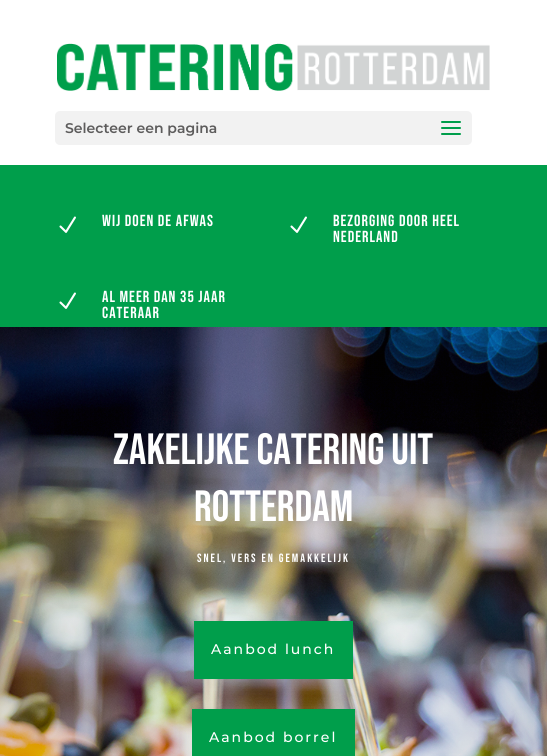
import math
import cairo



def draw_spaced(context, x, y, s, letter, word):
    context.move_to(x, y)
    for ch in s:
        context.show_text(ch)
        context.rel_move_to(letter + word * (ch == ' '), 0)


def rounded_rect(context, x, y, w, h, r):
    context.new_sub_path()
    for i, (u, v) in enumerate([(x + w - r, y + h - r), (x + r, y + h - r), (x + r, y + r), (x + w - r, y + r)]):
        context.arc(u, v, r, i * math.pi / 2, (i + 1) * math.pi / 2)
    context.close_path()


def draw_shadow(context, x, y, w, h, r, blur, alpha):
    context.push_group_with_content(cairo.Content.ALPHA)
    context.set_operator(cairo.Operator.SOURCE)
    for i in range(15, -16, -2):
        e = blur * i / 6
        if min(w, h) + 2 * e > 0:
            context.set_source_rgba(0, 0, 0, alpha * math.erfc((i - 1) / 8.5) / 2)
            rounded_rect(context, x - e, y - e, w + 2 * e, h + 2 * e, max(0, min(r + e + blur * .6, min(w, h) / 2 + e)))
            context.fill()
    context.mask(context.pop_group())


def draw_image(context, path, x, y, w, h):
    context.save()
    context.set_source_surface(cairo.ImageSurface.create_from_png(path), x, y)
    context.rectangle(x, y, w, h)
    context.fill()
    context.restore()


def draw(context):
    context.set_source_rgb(0, 158 / 255, 75 / 255)
    context.paint()
    context.set_source_rgb(1, 1, 1)
    context.rectangle(0, 0, 547, 165)
    context.fill()
    draw_image(context, "images/1.png", 57, 43, 433, 48)
    context.set_source_rgb(242 / 255, 242 / 255, 242 / 255)
    rounded_rect(context, 55, 111, 417, 34, 5)
    context.fill()
    draw_image(context, "images/2.png", 441, 121, 20, 14)
    draw_image(context, "images/3.png", 59, 216, 17, 17)
    draw_image(context, "images/3.png", 290, 216, 17, 17)
    draw_image(context, "images/3.png", 59, 292, 17, 17)
    draw_image(context, "images/4.png", 0, 327, 547, 429)
    context.set_source_rgb(191 / 255, 191 / 255, 191 / 255)
    draw_shadow(context, 194, 623, 159, 58, 0, 9, 0.32)
    context.set_source_rgb(0, 158 / 255, 75 / 255)
    context.rectangle(194, 621, 159, 58)
    context.fill()
    context.set_source_rgb(191 / 255, 191 / 255, 191 / 255)
    draw_shadow(context, 192, 711, 163, 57, 0, 9, 0.32)
    context.set_source_rgb(0, 158 / 255, 75 / 255)
    context.rectangle(192, 709, 163, 47)
    context.fill()
    context.select_font_face("Montserrat SemiBold")
    context.set_font_size(14)
    context.set_source_rgb(93 / 255, 92 / 255, 92 / 255)
    context.move_to(65, 133)
    context.show_text("Selecteer een pagina")
    context.select_font_face("Bebas Neue")
    context.set_font_size(16)
    context.set_source_rgb(1, 1, 1)
    draw_spaced(context, 102, 226, "WIJ DOEN DE AFWAS", 1, 0)
    draw_spaced(context, 333, 226, "BEZORGING DOOR HEEL", 1, 0)
    draw_spaced(context, 333, 242, "NEDERLAND", 1, 0)
    draw_spaced(context, 102, 302, "AL MEER DAN 35 JAAR", 1, 0)
    draw_spaced(context, 102, 318, "CATERAAR", 1, 0)
    context.set_font_size(43.75)
    context.move_to(113, 464)
    context.show_text("ZAKELIJKE CATERING UIT")
    context.move_to(194, 521)
    context.show_text("ROTTERDAM")
    context.set_font_size(12)
    draw_spaced(context, 197, 562, "SNEL, VERS EN GEMAKKELIJK", 2, 0)
    context.select_font_face("Montserrat Medium")
    context.set_font_size(14)
    draw_spaced(context, 211, 654, "Aanbod lunch", 2, 0)
    draw_spaced(context, 209, 742, "Aanbod borrel", 2, 0)


surface = cairo.ImageSurface(cairo.Format.RGB24, 547, 756)
context = cairo.Context(surface)
options = cairo.FontOptions()
options.set_hint_metrics(cairo.HintMetrics.OFF)
options.set_hint_style(cairo.HintStyle.NONE)
context.set_font_options(options)
context.set_miter_limit(4)
draw(context)
surface.write_to_png("out.png")
